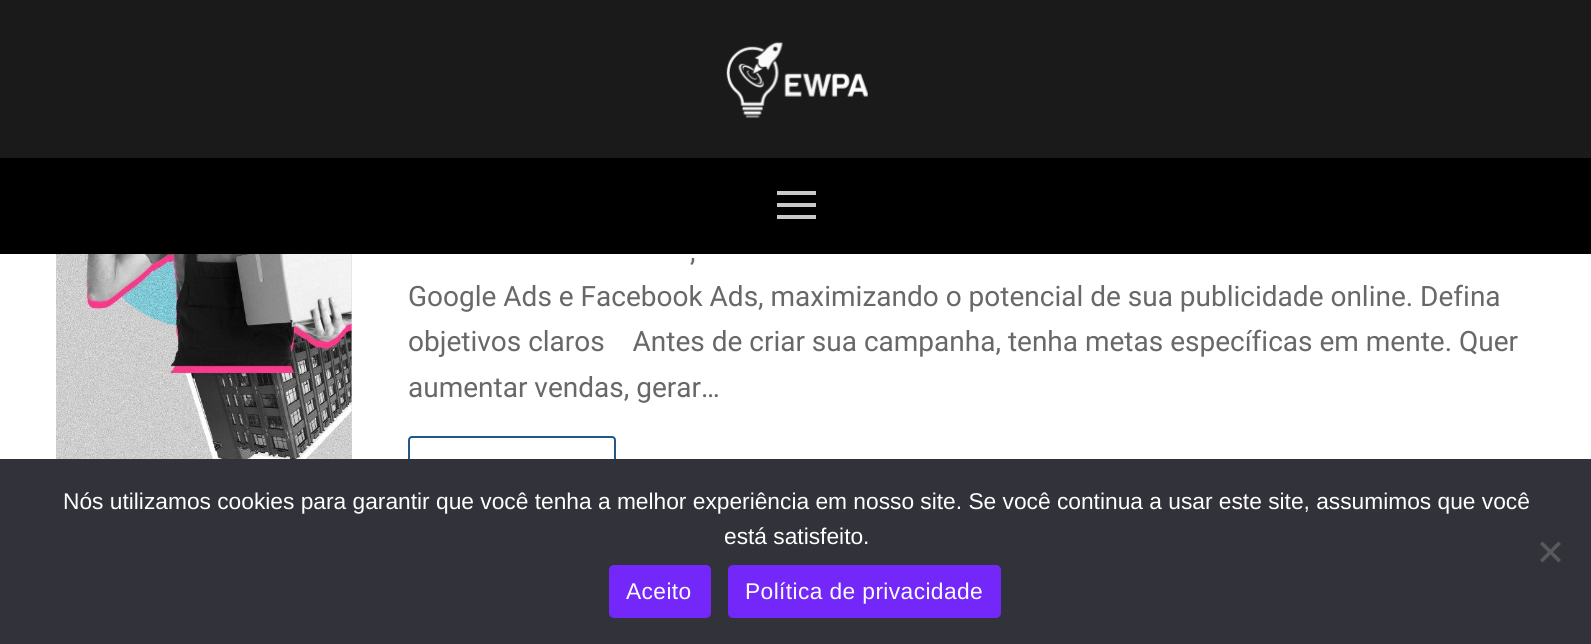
import math
import cairo



def draw_spaced(context, x, y, s, letter, word):
    context.move_to(x, y)
    for ch in s:
        context.show_text(ch)
        context.rel_move_to(letter + word * (ch == ' '), 0)


def rounded_rect(context, x, y, w, h, r):
    context.new_sub_path()
    for i, (u, v) in enumerate([(x + w - r, y + h - r), (x + r, y + h - r), (x + r, y + r), (x + w - r, y + r)]):
        context.arc(u, v, r, i * math.pi / 2, (i + 1) * math.pi / 2)
    context.close_path()


def draw_image(context, path, x, y, w, h):
    context.save()
    context.set_source_surface(cairo.ImageSurface.create_from_png(path), x, y)
    context.rectangle(x, y, w, h)
    context.fill()
    context.restore()


def draw(context):
    context.set_source_rgb(1, 1, 1)
    context.paint()
    context.set_source_rgb(26 / 255, 26 / 255, 26 / 255)
    context.rectangle(0, 0, 1591, 158)
    context.fill()
    draw_image(context, "images/1.png", 726, 41, 142, 77)
    context.set_source_rgb(0, 0, 0)
    context.rectangle(0, 158, 1591, 96)
    context.fill()
    context.set_source_rgb(201 / 255, 201 / 255, 201 / 255)
    context.rectangle(777, 203, 39, 4)
    context.fill()
    context.rectangle(777, 191, 39, 4)
    context.fill()
    context.rectangle(777, 215, 39, 4)
    context.fill()
    context.set_source_rgb(213 / 255, 213 / 255, 213 / 255)
    context.rectangle(351, 254, 1, 205)
    context.fill()
    draw_image(context, "images/2.png", 56, 254, 296, 205)
    rounded_rect(context, 409, 437, 206, 49, 3)
    context.set_source_rgb(35 / 255, 87 / 255, 135 / 255)
    context.stroke()
    context.set_source_rgb(50 / 255, 50 / 255, 58 / 255)
    context.rectangle(0, 459, 1591, 185)
    context.fill()
    context.set_source_rgb(89 / 255, 89 / 255, 93 / 255)
    context.new_path()
    context.move_to(1558.5, 541.5)
    context.line_to(1561, 544)
    context.line_to(1542.5, 562.5)
    context.line_to(1540, 560)
    context.close_path()
    context.fill()
    context.new_path()
    context.move_to(1540, 544)
    context.line_to(1542.5, 541.5)
    context.line_to(1561, 560)
    context.line_to(1558.5, 562.5)
    context.close_path()
    context.fill()
    context.set_source_rgb(116 / 255, 39 / 255, 249 / 255)
    rounded_rect(context, 609, 565, 102, 53, 5)
    context.fill()
    rounded_rect(context, 728, 565, 273, 53, 5)
    context.fill()
    context.select_font_face("Roboto")
    context.set_font_size(28)
    context.set_source_rgb(104 / 255, 104 / 255, 104 / 255)
    context.move_to(690, 261)
    context.show_text(",")
    context.move_to(408, 306)
    context.show_text("Google Ads e Facebook Ads, maximizando o potencial de sua publicidade online. Defina")
    context.move_to(408, 351)
    context.show_text("objetivos claros    Antes de criar sua campanha, tenha metas específicas em mente. Quer")
    context.move_to(408, 397)
    context.show_text("aumentar vendas, gerar…")
    context.select_font_face("Liberation Sans")
    context.set_font_size(22.75)
    context.set_source_rgb(1, 1, 1)
    context.move_to(63, 509)
    context.show_text("Nós utilizamos cookies para garantir que você tenha a melhor experiência em nosso site. Se você continua a usar este site, assumimos que você")
    context.move_to(724, 544)
    context.show_text("está satisfeito.")
    draw_spaced(context, 626, 599, "Aceito", 0.4, 0)
    draw_spaced(context, 745, 599, "Política de privacidade", 0.4, 0)


surface = cairo.ImageSurface(cairo.Format.RGB24, 1591, 644)
context = cairo.Context(surface)
options = cairo.FontOptions()
options.set_hint_metrics(cairo.HintMetrics.OFF)
options.set_hint_style(cairo.HintStyle.NONE)
context.set_font_options(options)
context.set_miter_limit(4)
draw(context)
surface.write_to_png("out.png")
